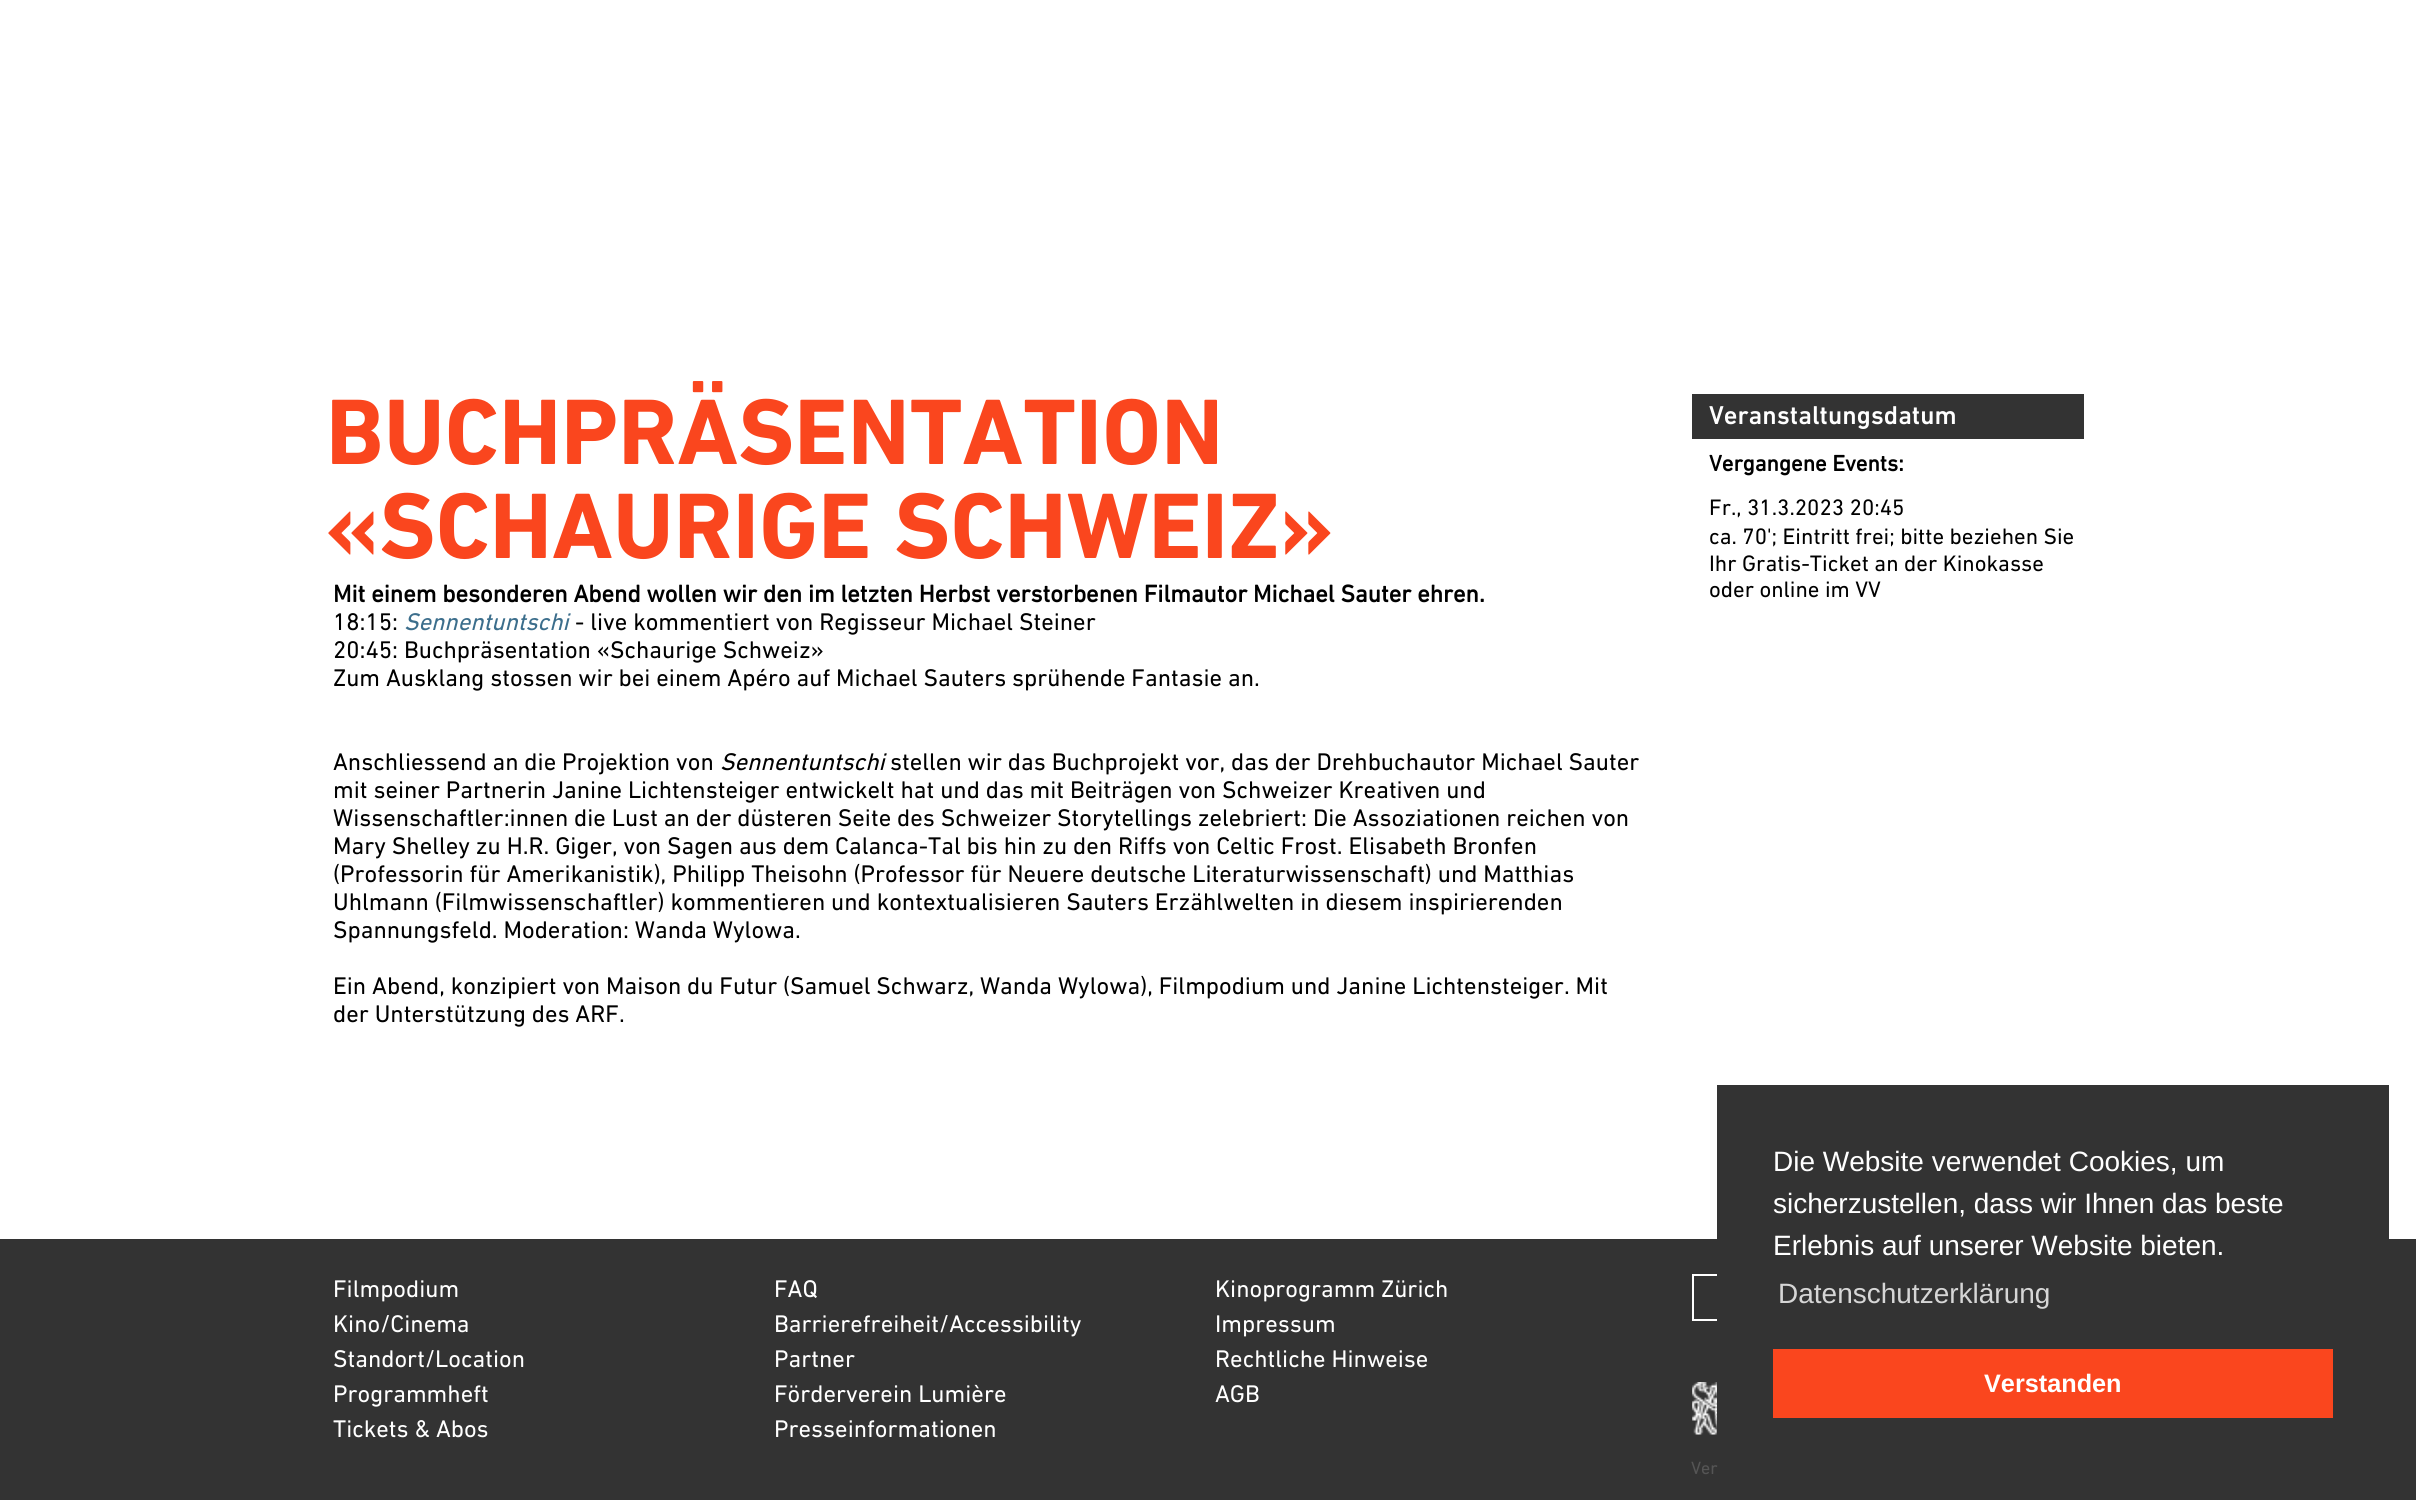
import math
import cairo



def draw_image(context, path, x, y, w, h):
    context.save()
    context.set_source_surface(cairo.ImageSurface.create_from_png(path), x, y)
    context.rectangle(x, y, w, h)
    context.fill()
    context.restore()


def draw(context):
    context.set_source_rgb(1, 1, 1)
    context.paint()
    context.set_source_rgb(51 / 255, 51 / 255, 51 / 255)
    context.rectangle(1692, 394, 392, 45)
    context.fill()
    context.rectangle(0, 1239, 2416, 261)
    context.fill()
    context.rectangle(1693, 1275, 390, 45)
    context.set_source_rgb(1, 1, 1)
    context.stroke()
    draw_image(context, "images/1.png", 1692, 1382, 25, 53)
    context.set_source_rgb(51 / 255, 51 / 255, 51 / 255)
    context.rectangle(1717, 1085, 672, 236)
    context.fill()
    context.set_source_rgb(250 / 255, 70 / 255, 30 / 255)
    context.rectangle(1773, 1349, 560, 69)
    context.fill()
    context.select_font_face("DIN Next", cairo.FontSlant.NORMAL, cairo.FontWeight.BOLD)
    context.set_font_size(94.5)
    context.move_to(326, 464)
    context.show_text("BUCHPRÄSENTATION")
    context.move_to(326, 558)
    context.show_text("«SCHAURIGE SCHWEIZ»")
    context.select_font_face("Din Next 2", cairo.FontSlant.NORMAL, cairo.FontWeight.BOLD)
    context.set_font_size(24.5)
    context.set_source_rgb(0, 0, 0)
    context.move_to(333, 602)
    context.show_text("Mit einem besonderen Abend wollen wir den im letzten Herbst verstorbenen Filmautor Michael Sauter ehren.")
    context.select_font_face("Din Next")
    context.move_to(333, 630)
    context.show_text("18:15:")
    context.select_font_face("Din Next", cairo.FontSlant.ITALIC)
    context.set_source_rgb(60 / 255, 110 / 255, 140 / 255)
    context.move_to(404, 630)
    context.show_text("Sennentuntschi")
    context.select_font_face("Din Next")
    context.set_source_rgb(0, 0, 0)
    context.move_to(575, 630)
    context.show_text("- live kommentiert von Regisseur Michael Steiner")
    context.move_to(333, 658)
    context.show_text("20:45: Buchpräsentation «Schaurige Schweiz»")
    context.move_to(333, 686)
    context.show_text("Zum Ausklang stossen wir bei einem Apéro auf Michael Sauters sprühende Fantasie an.")
    context.move_to(333, 770)
    context.show_text("Anschliessend an die Projektion von")
    context.select_font_face("Din Next", cairo.FontSlant.ITALIC)
    context.move_to(720, 770)
    context.show_text("Sennentuntschi")
    context.select_font_face("Din Next")
    context.move_to(890, 770)
    context.show_text("stellen wir das Buchprojekt vor, das der Drehbuchautor Michael Sauter")
    context.move_to(333, 798)
    context.show_text("mit seiner Partnerin Janine Lichtensteiger entwickelt hat und das mit Beiträgen von Schweizer Kreativen und")
    context.move_to(333, 826)
    context.show_text("Wissenschaftler:innen die Lust an der düsteren Seite des Schweizer Storytellings zelebriert: Die Assoziationen reichen von")
    context.move_to(333, 854)
    context.show_text("Mary Shelley zu H.R. Giger, von Sagen aus dem Calanca-Tal bis hin zu den Riffs von Celtic Frost. Elisabeth Bronfen")
    context.move_to(333, 882)
    context.show_text("(Professorin für Amerikanistik), Philipp Theisohn (Professor für Neuere deutsche Literaturwissenschaft) und Matthias")
    context.move_to(333, 910)
    context.show_text("Uhlmann (Filmwissenschaftler) kommentieren und kontextualisieren Sauters Erzählwelten in diesem inspirierenden")
    context.move_to(333, 938)
    context.show_text("Spannungsfeld. Moderation: Wanda Wylowa.")
    context.move_to(333, 994)
    context.show_text("Ein Abend, konzipiert von Maison du Futur (Samuel Schwarz, Wanda Wylowa), Filmpodium und Janine Lichtensteiger. Mit")
    context.move_to(333, 1022)
    context.show_text("der Unterstützung des ARF.")
    context.select_font_face("DIN Next Medium")
    context.set_font_size(26.25)
    context.set_source_rgb(1, 1, 1)
    context.move_to(1709, 424)
    context.show_text("Veranstaltungsdatum")
    context.select_font_face("Din Next 2", cairo.FontSlant.NORMAL, cairo.FontWeight.BOLD)
    context.set_font_size(22.75)
    context.set_source_rgb(0, 0, 0)
    context.move_to(1709, 471)
    context.show_text("Vergangene Events:")
    context.select_font_face("Din Next")
    context.move_to(1709, 515)
    context.show_text("Fr., 31.3.2023 20:45")
    context.move_to(1709, 544)
    context.show_text("ca. 70'; Eintritt frei; bitte beziehen Sie")
    context.move_to(1709, 571)
    context.show_text("Ihr Gratis-Ticket an der Kinokasse")
    context.move_to(1709, 597)
    context.show_text("oder online im VV")
    context.set_font_size(24.5)
    context.set_source_rgb(1, 1, 1)
    context.move_to(333, 1297)
    context.show_text("Filmpodium")
    context.move_to(333, 1332)
    context.show_text("Kino/Cinema")
    context.move_to(333, 1367)
    context.show_text("Standort/Location")
    context.move_to(333, 1402)
    context.show_text("Programmheft")
    context.move_to(333, 1437)
    context.show_text("Tickets & Abos")
    context.move_to(774, 1297)
    context.show_text("FAQ")
    context.move_to(774, 1332)
    context.show_text("Barrierefreiheit/Accessibility")
    context.move_to(774, 1367)
    context.show_text("Partner")
    context.move_to(774, 1402)
    context.show_text("Förderverein Lumière")
    context.move_to(774, 1437)
    context.show_text("Presseinformationen")
    context.move_to(1215, 1297)
    context.show_text("Kinoprogramm Zürich")
    context.move_to(1215, 1332)
    context.show_text("Impressum")
    context.move_to(1215, 1367)
    context.show_text("Rechtliche Hinweise")
    context.move_to(1215, 1402)
    context.show_text("AGB")
    context.set_font_size(18)
    context.set_source_rgb(85 / 255, 85 / 255, 85 / 255)
    context.move_to(1691, 1474)
    context.show_text("Ver")
    context.select_font_face("Liberation Sans")
    context.set_font_size(28)
    context.set_source_rgb(1, 1, 1)
    context.move_to(1773, 1171)
    context.show_text("Die Website verwendet Cookies, um")
    context.move_to(1773, 1213)
    context.show_text("sicherzustellen, dass wir Ihnen das beste")
    context.move_to(1773, 1255)
    context.show_text("Erlebnis auf unserer Website bieten.")
    context.set_source_rgb(214 / 255, 214 / 255, 214 / 255)
    context.move_to(1778, 1303)
    context.show_text("Datenschutzerklärung")
    context.select_font_face("Liberation Sans", cairo.FontSlant.NORMAL, cairo.FontWeight.BOLD)
    context.set_font_size(25.25)
    context.set_source_rgb(1, 1, 1)
    context.move_to(1984, 1392)
    context.show_text("Verstanden")


surface = cairo.ImageSurface(cairo.Format.RGB24, 2416, 1500)
context = cairo.Context(surface)
options = cairo.FontOptions()
options.set_hint_metrics(cairo.HintMetrics.OFF)
options.set_hint_style(cairo.HintStyle.NONE)
context.set_font_options(options)
context.set_miter_limit(4)
draw(context)
surface.write_to_png("out.png")
